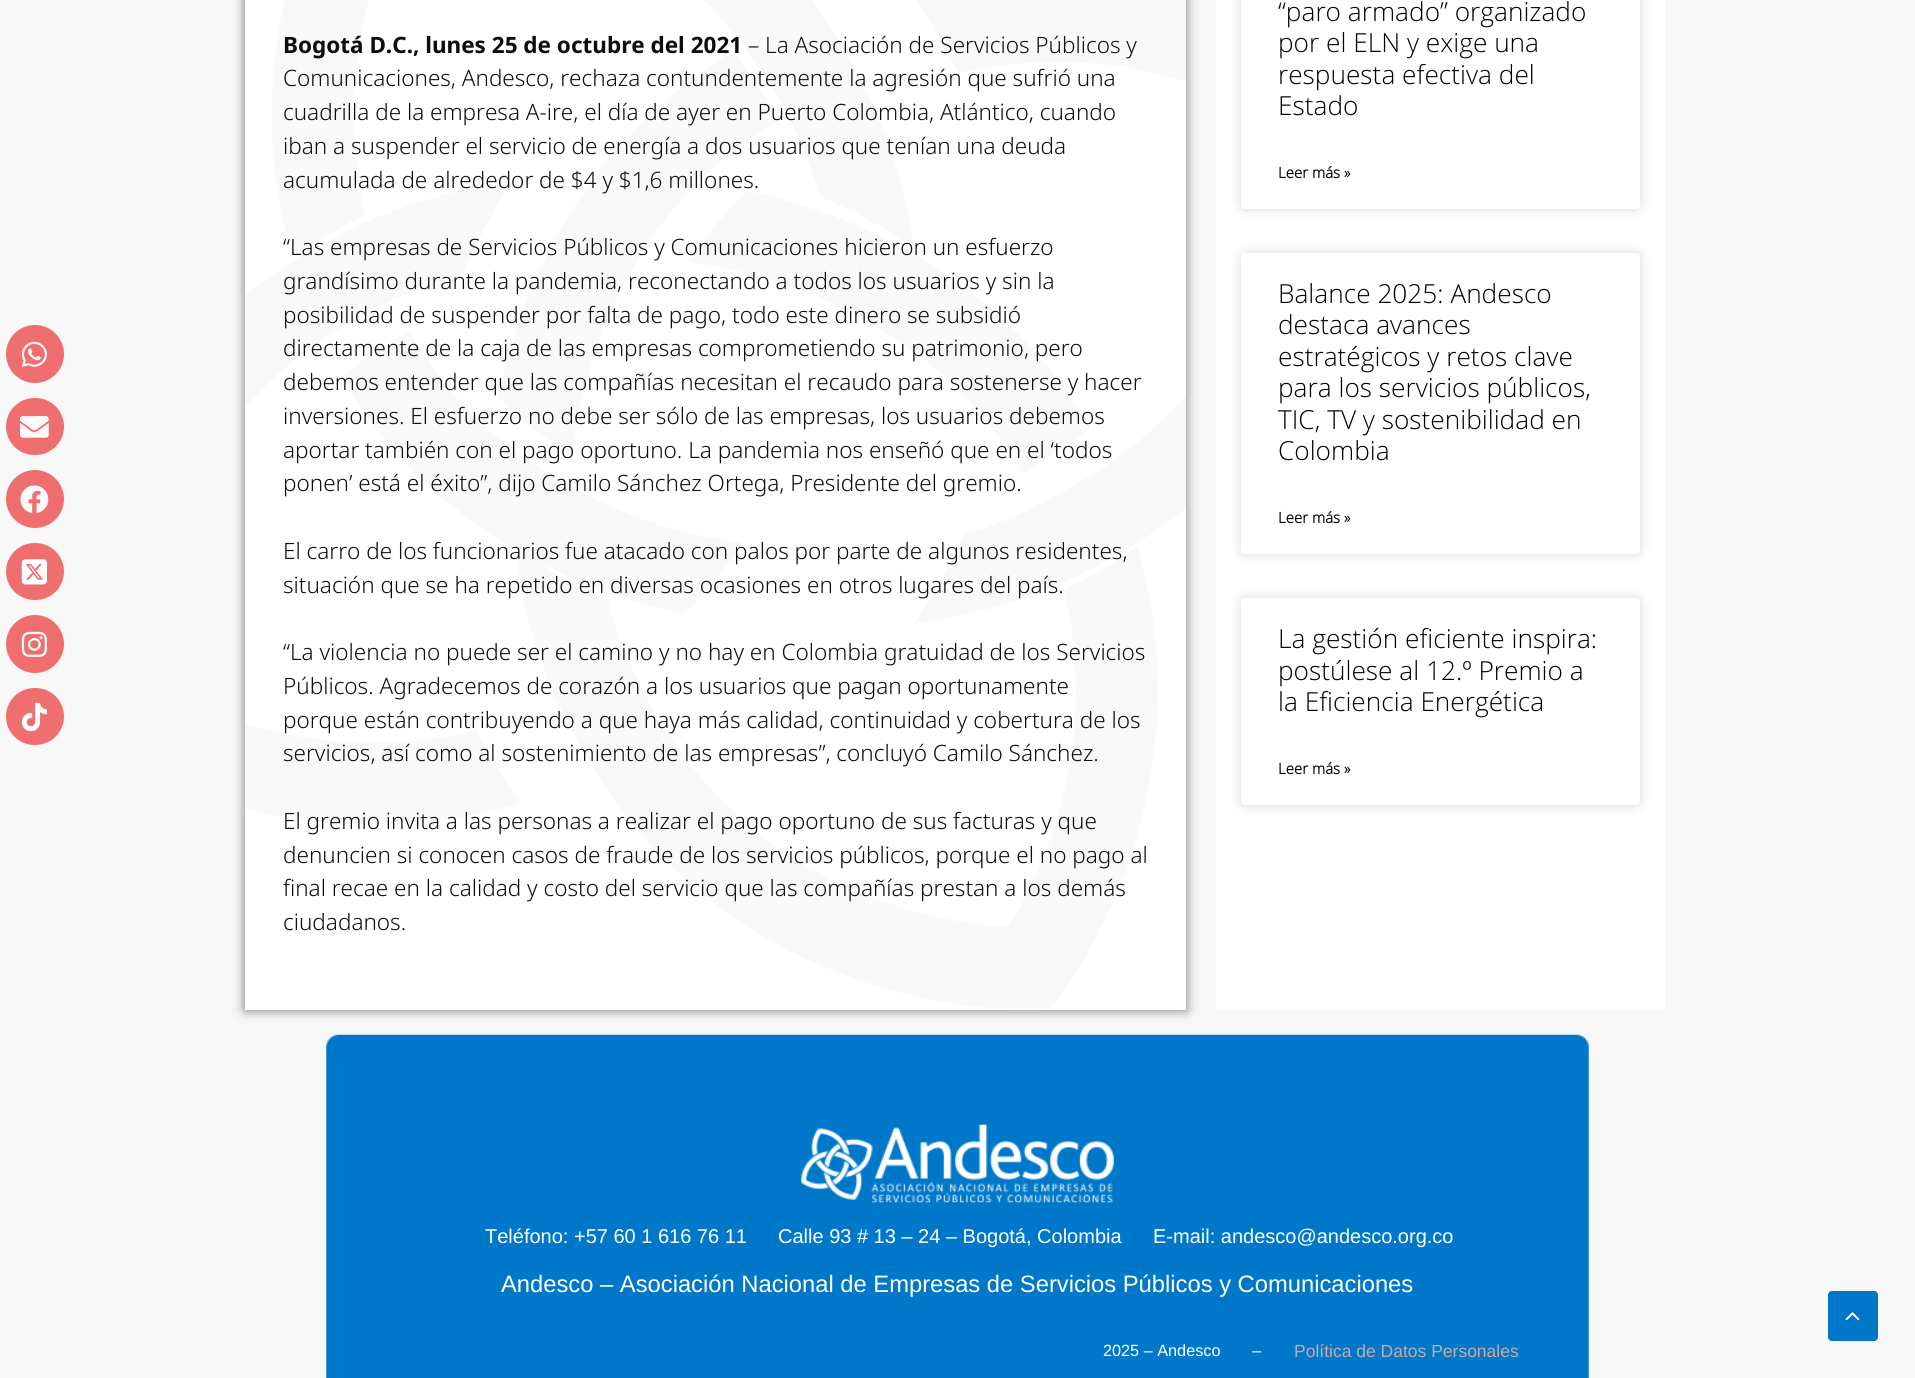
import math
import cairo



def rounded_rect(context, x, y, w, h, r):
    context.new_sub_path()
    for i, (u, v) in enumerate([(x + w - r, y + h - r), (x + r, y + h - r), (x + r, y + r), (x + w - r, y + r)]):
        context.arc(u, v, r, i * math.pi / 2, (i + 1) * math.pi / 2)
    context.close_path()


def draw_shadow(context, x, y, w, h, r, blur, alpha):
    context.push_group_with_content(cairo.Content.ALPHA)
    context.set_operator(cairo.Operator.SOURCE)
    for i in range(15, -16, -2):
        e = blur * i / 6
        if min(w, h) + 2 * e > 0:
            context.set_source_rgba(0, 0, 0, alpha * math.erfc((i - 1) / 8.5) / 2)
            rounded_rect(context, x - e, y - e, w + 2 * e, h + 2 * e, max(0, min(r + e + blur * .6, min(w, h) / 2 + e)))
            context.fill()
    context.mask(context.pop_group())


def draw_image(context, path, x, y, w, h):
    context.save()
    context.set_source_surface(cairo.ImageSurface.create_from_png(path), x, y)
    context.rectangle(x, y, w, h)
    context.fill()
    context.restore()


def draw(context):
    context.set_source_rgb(249 / 255, 248 / 255, 248 / 255)
    context.paint()
    context.set_source_rgb(239 / 255, 111 / 255, 112 / 255)
    context.arc(35, 354, 29, 0, 2 * math.pi)
    context.fill()
    draw_image(context, "images/1.png", 21, 341, 26, 26)
    rounded_rect(context, 6, 398, 58, 57, 28.5)
    context.fill()
    draw_image(context, "images/2.png", 20, 416, 29, 22)
    context.arc(35, 499, 29, 0, 2 * math.pi)
    context.fill()
    draw_image(context, "images/3.png", 20, 485, 29, 29)
    rounded_rect(context, 6, 543, 58, 57, 28.5)
    context.fill()
    draw_image(context, "images/4.png", 21, 559, 26, 26)
    context.arc(35, 644, 29, 0, 2 * math.pi)
    context.fill()
    draw_image(context, "images/5.png", 21, 631, 26, 26)
    rounded_rect(context, 6, 688, 58, 57, 28.5)
    context.fill()
    draw_image(context, "images/6.png", 21, 703, 26, 28)
    context.set_source_rgb(14 / 255, 14 / 255, 14 / 255)
    draw_shadow(context, 245, -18, 941, 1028, 0, 6, 0.56)
    context.set_source_rgb(1, 1, 1)
    context.rectangle(245, 0, 941, 1010)
    context.fill()
    draw_image(context, "images/7.png", 245, 0, 941, 1009)
    context.rectangle(1216, 0, 449, 1010)
    context.fill()
    context.set_source_rgb(0, 0, 0)
    draw_shadow(context, 1241, -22, 399, 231, 4, 6, 0.15)
    context.set_source_rgb(1, 1, 1)
    rounded_rect(context, 1241, -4, 399, 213, 4)
    context.fill()
    context.set_source_rgb(0, 0, 0)
    draw_shadow(context, 1241, 253, 399, 301, 4, 6, 0.15)
    context.set_source_rgb(1, 1, 1)
    rounded_rect(context, 1241, 253, 399, 301, 4)
    context.fill()
    context.set_source_rgb(0, 0, 0)
    draw_shadow(context, 1241, 598, 399, 207, 4, 6, 0.15)
    context.set_source_rgb(1, 1, 1)
    rounded_rect(context, 1241, 598, 399, 207, 4)
    context.fill()
    draw_image(context, "images/8.png", 326, 1034, 1263, 344)
    draw_image(context, "images/9.png", 801, 1124, 313, 79)
    context.set_source_rgb(0, 120 / 255, 201 / 255)
    rounded_rect(context, 1828, 1291, 50, 50, 4)
    context.fill()
    draw_image(context, "images/10.png", 1845, 1312, 15, 9)
    context.select_font_face("Noto Sans", cairo.FontSlant.NORMAL, cairo.FontWeight.BOLD)
    context.set_font_size(22.5)
    context.set_source_rgb(14 / 255, 12 / 255, 18 / 255)
    context.move_to(283, 53)
    context.show_text("Bogotá D.C., lunes 25 de octubre del 2021")
    context.select_font_face("Noto Sans Light")
    context.move_to(748, 53)
    context.show_text("– La Asociación de Servicios Públicos y")
    context.move_to(283, 86)
    context.show_text("Comunicaciones, Andesco, rechaza contundentemente la agresión que sufrió una")
    context.move_to(283, 120)
    context.show_text("cuadrilla de la empresa A-ire, el día de ayer en Puerto Colombia, Atlántico, cuando")
    context.move_to(283, 154)
    context.show_text("iban a suspender el servicio de energía a dos usuarios que tenían una deuda")
    context.move_to(283, 188)
    context.show_text("acumulada de alrededor de $4 y $1,6 millones.")
    context.move_to(283, 255)
    context.show_text("“Las empresas de Servicios Públicos y Comunicaciones hicieron un esfuerzo")
    context.move_to(283, 289)
    context.show_text("grandísimo durante la pandemia, reconectando a todos los usuarios y sin la")
    context.move_to(283, 323)
    context.show_text("posibilidad de suspender por falta de pago, todo este dinero se subsidió")
    context.move_to(283, 356)
    context.show_text("directamente de la caja de las empresas comprometiendo su patrimonio, pero")
    context.move_to(283, 390)
    context.show_text("debemos entender que las compañías necesitan el recaudo para sostenerse y hacer")
    context.move_to(283, 424)
    context.show_text("inversiones. El esfuerzo no debe ser sólo de las empresas, los usuarios debemos")
    context.move_to(283, 458)
    context.show_text("aportar también con el pago oportuno. La pandemia nos enseñó que en el ‘todos")
    context.move_to(283, 491)
    context.show_text("ponen’ está el éxito”, dijo Camilo Sánchez Ortega, Presidente del gremio.")
    context.move_to(283, 559)
    context.show_text("El carro de los funcionarios fue atacado con palos por parte de algunos residentes,")
    context.move_to(283, 593)
    context.show_text("situación que se ha repetido en diversas ocasiones en otros lugares del país.")
    context.move_to(283, 660)
    context.show_text("“La violencia no puede ser el camino y no hay en Colombia gratuidad de los Servicios")
    context.move_to(283, 694)
    context.show_text("Públicos. Agradecemos de corazón a los usuarios que pagan oportunamente")
    context.move_to(283, 728)
    context.show_text("porque están contribuyendo a que haya más calidad, continuidad y cobertura de los")
    context.move_to(283, 761)
    context.show_text("servicios, así como al sostenimiento de las empresas”, concluyó Camilo Sánchez.")
    context.move_to(283, 829)
    context.show_text("El gremio invita a las personas a realizar el pago oportuno de sus facturas y que")
    context.move_to(283, 863)
    context.show_text("denuncien si conocen casos de fraude de los servicios públicos, porque el no pago al")
    context.move_to(283, 896)
    context.show_text("final recae en la calidad y costo del servicio que las compañías prestan a los demás")
    context.move_to(283, 930)
    context.show_text("ciudadanos.")
    context.select_font_face("Open Sans Light")
    context.set_font_size(26.25)
    context.set_source_rgb(0, 0, 0)
    context.move_to(1278, 21)
    context.show_text("“paro armado” organizado")
    context.move_to(1278, 52)
    context.show_text("por el ELN y exige una")
    context.move_to(1278, 84)
    context.show_text("respuesta efectiva del")
    context.move_to(1278, 115)
    context.show_text("Estado")
    context.select_font_face("Open Sans", cairo.FontSlant.NORMAL, cairo.FontWeight.BOLD)
    context.set_font_size(15)
    context.move_to(1278, 178)
    context.show_text("Leer más »")
    context.select_font_face("Open Sans Light")
    context.set_font_size(26.25)
    context.move_to(1278, 303)
    context.show_text("Balance 2025: Andesco")
    context.move_to(1278, 334)
    context.show_text("destaca avances")
    context.move_to(1278, 366)
    context.show_text("estratégicos y retos clave")
    context.move_to(1278, 397)
    context.show_text("para los servicios públicos,")
    context.move_to(1278, 429)
    context.show_text("TIC, TV y sostenibilidad en")
    context.move_to(1278, 460)
    context.show_text("Colombia")
    context.select_font_face("Open Sans", cairo.FontSlant.NORMAL, cairo.FontWeight.BOLD)
    context.set_font_size(15)
    context.move_to(1278, 523)
    context.show_text("Leer más »")
    context.select_font_face("Open Sans Light")
    context.set_font_size(26.25)
    context.move_to(1278, 648)
    context.show_text("La gestión eficiente inspira:")
    context.move_to(1278, 680)
    context.show_text("postúlese al 12.º Premio a")
    context.move_to(1278, 711)
    context.show_text("la Eficiencia Energética")
    context.select_font_face("Open Sans", cairo.FontSlant.NORMAL, cairo.FontWeight.BOLD)
    context.set_font_size(15)
    context.move_to(1278, 774)
    context.show_text("Leer más »")
    context.select_font_face("Liberation Sans")
    context.set_font_size(20)
    context.set_source_rgb(1, 1, 1)
    context.move_to(485, 1243)
    context.show_text("Teléfono: +57 60 1 616 76 11")
    context.move_to(778, 1243)
    context.show_text("Calle 93 # 13 – 24 – Bogotá, Colombia")
    context.move_to(1153, 1243)
    context.show_text("E-mail: andesco@andesco.org.co")
    context.set_font_size(23.75)
    context.move_to(501, 1292)
    context.show_text("Andesco – Asociación Nacional de Empresas de Servicios Públicos y Comunicaciones")
    context.set_font_size(16.25)
    context.move_to(1103, 1356)
    context.show_text("2025 – Andesco")
    context.move_to(1252, 1356)
    context.show_text("–")
    context.set_font_size(17.5)
    context.set_source_rgb(195 / 255, 171 / 255, 171 / 255)
    context.move_to(1294, 1357)
    context.show_text("Política de Datos Personales")


surface = cairo.ImageSurface(cairo.Format.RGB24, 1915, 1378)
context = cairo.Context(surface)
options = cairo.FontOptions()
options.set_hint_metrics(cairo.HintMetrics.OFF)
options.set_hint_style(cairo.HintStyle.NONE)
context.set_font_options(options)
context.set_miter_limit(4)
draw(context)
surface.write_to_png("out.png")
